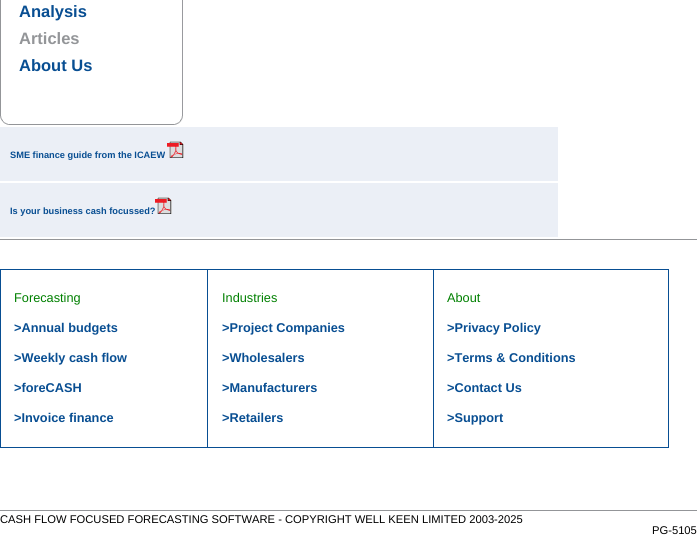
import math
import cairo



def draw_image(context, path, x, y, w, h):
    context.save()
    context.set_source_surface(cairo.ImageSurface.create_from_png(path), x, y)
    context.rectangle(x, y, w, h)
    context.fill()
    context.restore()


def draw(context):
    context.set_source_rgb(1, 1, 1)
    context.paint()
    context.set_source_rgb(153 / 255, 154 / 255, 158 / 255)
    context.rectangle(182, 0, 1, 116)
    context.fill()
    context.set_source_rgb(147 / 255, 149 / 255, 152 / 255)
    context.rectangle(0, 0, 1, 116)
    context.fill()
    draw_image(context, "images/1.png", 9, 116, 174, 9)
    draw_image(context, "images/2.png", 0, 116, 9, 9)
    context.set_source_rgb(235 / 255, 239 / 255, 246 / 255)
    context.rectangle(0, 127, 558, 54)
    context.fill()
    draw_image(context, "images/3.png", 167, 141, 17, 17)
    context.rectangle(0, 183, 558, 54)
    context.fill()
    draw_image(context, "images/3.png", 155, 197, 17, 17)
    context.set_source_rgb(147 / 255, 149 / 255, 152 / 255)
    context.rectangle(0, 239, 697, 1)
    context.fill()
    context.set_source_rgb(8 / 255, 78 / 255, 146 / 255)
    context.rectangle(0, 269, 669, 1)
    context.fill()
    context.rectangle(0, 269, 1, 179)
    context.fill()
    context.rectangle(668, 269, 1, 179)
    context.fill()
    context.rectangle(433, 447, 236, 1)
    context.fill()
    context.rectangle(433, 269, 1, 179)
    context.fill()
    context.rectangle(207, 447, 227, 1)
    context.fill()
    context.rectangle(207, 269, 1, 179)
    context.fill()
    context.rectangle(0, 447, 208, 1)
    context.fill()
    context.set_source_rgb(147 / 255, 149 / 255, 152 / 255)
    context.rectangle(0, 510, 697, 1)
    context.fill()
    context.select_font_face("Liberation Sans", cairo.FontSlant.NORMAL, cairo.FontWeight.BOLD)
    context.set_font_size(16.5)
    context.set_source_rgb(8 / 255, 78 / 255, 146 / 255)
    context.move_to(19, 17)
    context.show_text("Analysis")
    context.set_source_rgb(147 / 255, 149 / 255, 152 / 255)
    context.move_to(19, 44)
    context.show_text("Articles")
    context.set_source_rgb(8 / 255, 78 / 255, 146 / 255)
    context.move_to(19, 71)
    context.show_text("About Us")
    context.set_font_size(9.25)
    context.move_to(10, 158)
    context.show_text("SME finance guide from the ICAEW")
    context.move_to(10, 214)
    context.show_text("Is your business cash focussed?")
    context.select_font_face("Liberation Sans")
    context.set_font_size(12.75)
    context.set_source_rgb(0, 128 / 255, 0)
    context.move_to(14, 302)
    context.show_text("Forecasting")
    context.select_font_face("Liberation Sans", cairo.FontSlant.NORMAL, cairo.FontWeight.BOLD)
    context.set_source_rgb(8 / 255, 78 / 255, 146 / 255)
    context.move_to(14, 332)
    context.show_text(">Annual budgets")
    context.move_to(14, 362)
    context.show_text(">Weekly cash flow")
    context.move_to(14, 392)
    context.show_text(">foreCASH")
    context.move_to(14, 422)
    context.show_text(">Invoice finance")
    context.select_font_face("Liberation Sans")
    context.set_source_rgb(0, 128 / 255, 0)
    context.move_to(222, 302)
    context.show_text("Industries")
    context.select_font_face("Liberation Sans", cairo.FontSlant.NORMAL, cairo.FontWeight.BOLD)
    context.set_source_rgb(8 / 255, 78 / 255, 146 / 255)
    context.move_to(222, 332)
    context.show_text(">Project Companies")
    context.move_to(222, 362)
    context.show_text(">Wholesalers")
    context.move_to(222, 392)
    context.show_text(">Manufacturers")
    context.move_to(222, 422)
    context.show_text(">Retailers")
    context.select_font_face("Liberation Sans")
    context.set_source_rgb(0, 128 / 255, 0)
    context.move_to(447, 302)
    context.show_text("About")
    context.select_font_face("Liberation Sans", cairo.FontSlant.NORMAL, cairo.FontWeight.BOLD)
    context.set_source_rgb(8 / 255, 78 / 255, 146 / 255)
    context.move_to(447, 332)
    context.show_text(">Privacy Policy")
    context.move_to(447, 362)
    context.show_text(">Terms & Conditions")
    context.move_to(447, 392)
    context.show_text(">Contact Us")
    context.move_to(447, 422)
    context.show_text(">Support")
    context.select_font_face("Liberation Sans")
    context.set_font_size(11.2)
    context.set_source_rgb(0, 0, 0)
    context.move_to(0, 523)
    context.show_text("CASH FLOW FOCUSED FORECASTING SOFTWARE - COPYRIGHT WELL KEEN LIMITED 2003-2025")
    context.move_to(652, 534)
    context.show_text("PG-5105")


surface = cairo.ImageSurface(cairo.Format.RGB24, 697, 546)
context = cairo.Context(surface)
options = cairo.FontOptions()
options.set_hint_metrics(cairo.HintMetrics.OFF)
options.set_hint_style(cairo.HintStyle.NONE)
context.set_font_options(options)
context.set_miter_limit(4)
draw(context)
surface.write_to_png("out.png")
